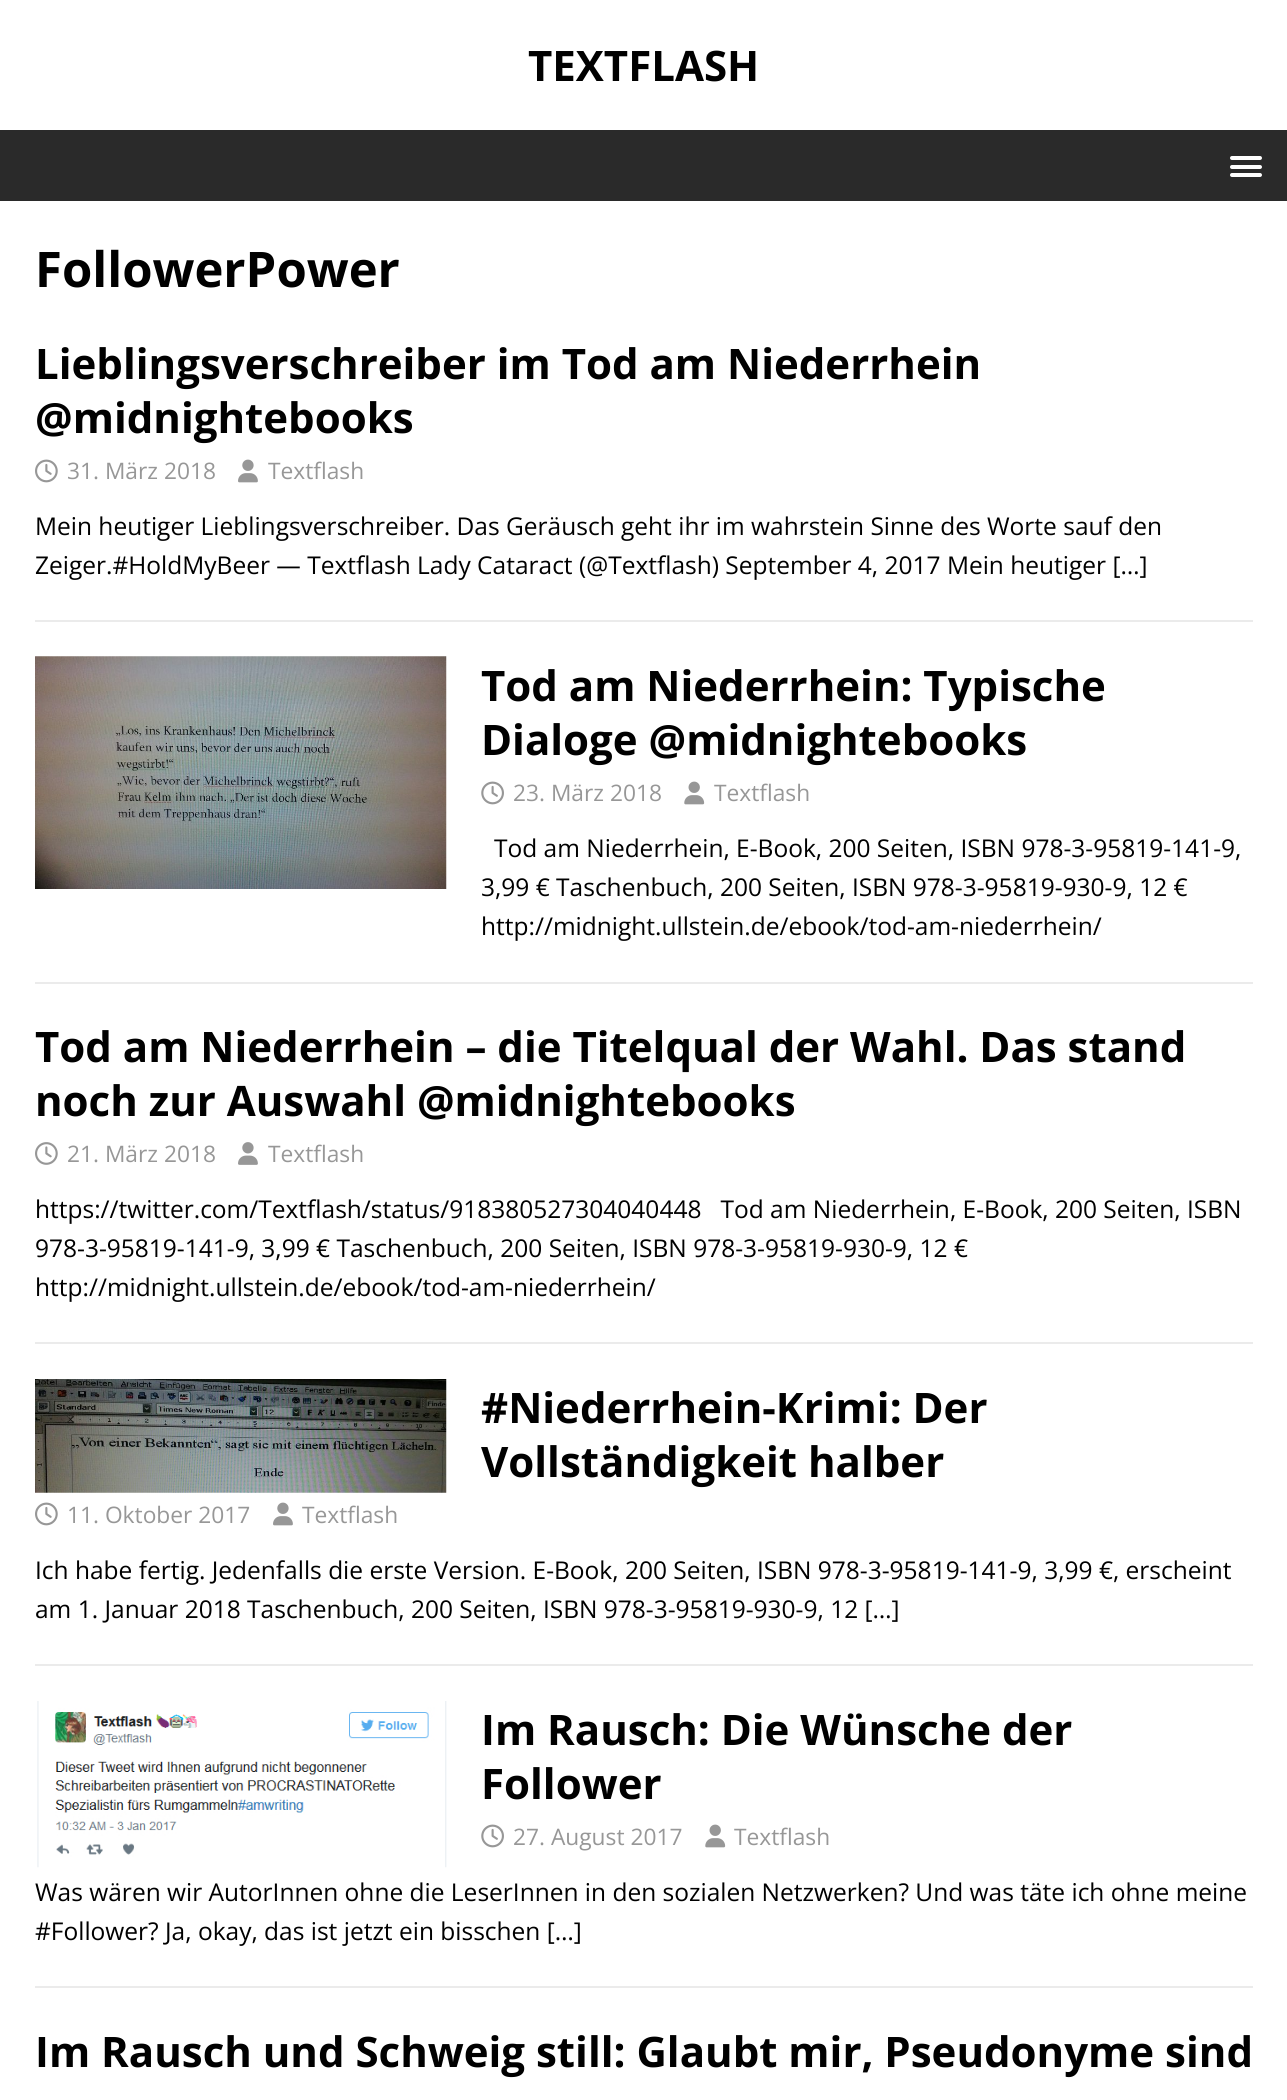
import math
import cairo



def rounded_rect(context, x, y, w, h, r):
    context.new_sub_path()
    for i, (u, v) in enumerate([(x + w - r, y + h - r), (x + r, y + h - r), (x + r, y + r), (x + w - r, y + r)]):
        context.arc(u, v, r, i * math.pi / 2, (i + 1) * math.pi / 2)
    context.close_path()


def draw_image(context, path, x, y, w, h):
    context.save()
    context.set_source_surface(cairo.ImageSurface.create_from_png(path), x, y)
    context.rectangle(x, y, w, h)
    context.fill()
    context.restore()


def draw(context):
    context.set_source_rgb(1, 1, 1)
    context.paint()
    context.set_source_rgb(42 / 255, 42 / 255, 42 / 255)
    context.rectangle(0, 130, 1287, 71)
    context.fill()
    context.set_source_rgb(1, 1, 1)
    rounded_rect(context, 1230, 156, 32, 4, 2)
    context.fill()
    rounded_rect(context, 1230, 165, 32, 4, 2)
    context.fill()
    rounded_rect(context, 1230, 173, 32, 4, 2)
    context.fill()
    context.set_source_rgb(235 / 255, 235 / 255, 235 / 255)
    context.rectangle(35, 620, 1218, 2)
    context.fill()
    draw_image(context, "images/1.png", 35, 459, 23, 24)
    draw_image(context, "images/2.png", 238, 459, 20, 24)
    context.rectangle(35, 982, 1218, 2)
    context.fill()
    draw_image(context, "images/3.png", 35, 656, 412, 233)
    draw_image(context, "images/4.png", 481, 781, 23, 24)
    draw_image(context, "images/5.png", 684, 781, 21, 24)
    context.rectangle(35, 1342, 1218, 2)
    context.fill()
    draw_image(context, "images/6.png", 35, 1142, 23, 23)
    draw_image(context, "images/7.png", 238, 1142, 20, 23)
    context.rectangle(35, 1664, 1218, 2)
    context.fill()
    draw_image(context, "images/8.png", 35, 1379, 412, 114)
    draw_image(context, "images/1.png", 35, 1502, 23, 24)
    draw_image(context, "images/2.png", 273, 1502, 20, 24)
    context.rectangle(35, 1986, 1218, 2)
    context.fill()
    draw_image(context, "images/9.png", 37, 1701, 410, 167)
    draw_image(context, "images/4.png", 481, 1824, 23, 24)
    draw_image(context, "images/5.png", 705, 1824, 21, 24)
    context.select_font_face("Open Sans", cairo.FontSlant.NORMAL, cairo.FontWeight.BOLD)
    context.set_font_size(42)
    context.set_source_rgb(0, 0, 0)
    context.move_to(528, 81)
    context.show_text("TEXTFLASH")
    context.set_font_size(49)
    context.move_to(35, 287)
    context.show_text("FollowerPower")
    context.set_font_size(42)
    context.move_to(35, 379)
    context.show_text("Lieblingsverschreiber im Tod am Niederrhein")
    context.move_to(35, 433)
    context.show_text("@midnightebooks")
    context.select_font_face("Open Sans")
    context.set_font_size(22.75)
    context.set_source_rgb(151 / 255, 151 / 255, 151 / 255)
    context.move_to(67, 479)
    context.show_text("31. März 2018")
    context.move_to(268, 479)
    context.show_text("Textflash")
    context.set_font_size(24.5)
    context.set_source_rgb(0, 0, 0)
    context.move_to(35, 535)
    context.show_text("Mein heutiger Lieblingsverschreiber. Das Geräusch geht ihr im wahrstein Sinne des Worte sauf den")
    context.move_to(35, 574)
    context.show_text("Zeiger.#HoldMyBeer — Textflash Lady Cataract (@Textflash) September 4, 2017 Mein heutiger […]")
    context.select_font_face("Open Sans", cairo.FontSlant.NORMAL, cairo.FontWeight.BOLD)
    context.set_font_size(42)
    context.move_to(481, 701)
    context.show_text("Tod am Niederrhein: Typische")
    context.move_to(481, 755)
    context.show_text("Dialoge @midnightebooks")
    context.select_font_face("Open Sans")
    context.set_font_size(22.75)
    context.set_source_rgb(151 / 255, 151 / 255, 151 / 255)
    context.move_to(513, 801)
    context.show_text("23. März 2018")
    context.move_to(714, 801)
    context.show_text("Textflash")
    context.set_font_size(24.5)
    context.set_source_rgb(0, 0, 0)
    context.move_to(494, 857)
    context.show_text("Tod am Niederrhein, E-Book, 200 Seiten, ISBN 978-3-95819-141-9,")
    context.move_to(481, 896)
    context.show_text("3,99 € Taschenbuch, 200 Seiten, ISBN 978-3-95819-930-9, 12 €")
    context.move_to(481, 935)
    context.show_text("http://midnight.ullstein.de/ebook/tod-am-niederrhein/")
    context.select_font_face("Open Sans", cairo.FontSlant.NORMAL, cairo.FontWeight.BOLD)
    context.set_font_size(42)
    context.move_to(35, 1062)
    context.show_text("Tod am Niederrhein – die Titelqual der Wahl. Das stand")
    context.move_to(35, 1116)
    context.show_text("noch zur Auswahl @midnightebooks")
    context.select_font_face("Open Sans")
    context.set_font_size(22.75)
    context.set_source_rgb(151 / 255, 151 / 255, 151 / 255)
    context.move_to(67, 1162)
    context.show_text("21. März 2018")
    context.move_to(268, 1162)
    context.show_text("Textflash")
    context.set_font_size(24.5)
    context.set_source_rgb(0, 0, 0)
    context.move_to(35, 1218)
    context.show_text("https://twitter.com/Textflash/status/918380527304040448   Tod am Niederrhein, E-Book, 200 Seiten, ISBN")
    context.move_to(35, 1257)
    context.show_text("978-3-95819-141-9, 3,99 € Taschenbuch, 200 Seiten, ISBN 978-3-95819-930-9, 12 €")
    context.move_to(35, 1296)
    context.show_text("http://midnight.ullstein.de/ebook/tod-am-niederrhein/")
    context.select_font_face("Open Sans", cairo.FontSlant.NORMAL, cairo.FontWeight.BOLD)
    context.set_font_size(42)
    context.move_to(481, 1423)
    context.show_text("#Niederrhein-Krimi: Der")
    context.move_to(481, 1477)
    context.show_text("Vollständigkeit halber")
    context.select_font_face("Open Sans")
    context.set_font_size(22.75)
    context.set_source_rgb(151 / 255, 151 / 255, 151 / 255)
    context.move_to(67, 1523)
    context.show_text("11. Oktober 2017")
    context.move_to(302, 1523)
    context.show_text("Textflash")
    context.set_font_size(24.5)
    context.set_source_rgb(0, 0, 0)
    context.move_to(35, 1579)
    context.show_text("Ich habe fertig. Jedenfalls die erste Version. E-Book, 200 Seiten, ISBN 978-3-95819-141-9, 3,99 €, erscheint")
    context.move_to(35, 1618)
    context.show_text("am 1. Januar 2018 Taschenbuch, 200 Seiten, ISBN 978-3-95819-930-9, 12 […]")
    context.select_font_face("Open Sans", cairo.FontSlant.NORMAL, cairo.FontWeight.BOLD)
    context.set_font_size(42)
    context.move_to(481, 1745)
    context.show_text("Im Rausch: Die Wünsche der")
    context.move_to(481, 1799)
    context.show_text("Follower")
    context.select_font_face("Open Sans")
    context.set_font_size(22.75)
    context.set_source_rgb(151 / 255, 151 / 255, 151 / 255)
    context.move_to(513, 1845)
    context.show_text("27. August 2017")
    context.move_to(734, 1845)
    context.show_text("Textflash")
    context.set_font_size(24.5)
    context.set_source_rgb(0, 0, 0)
    context.move_to(35, 1901)
    context.show_text("Was wären wir AutorInnen ohne die LeserInnen in den sozialen Netzwerken? Und was täte ich ohne meine")
    context.move_to(35, 1940)
    context.show_text("#Follower? Ja, okay, das ist jetzt ein bisschen […]")
    context.select_font_face("Open Sans", cairo.FontSlant.NORMAL, cairo.FontWeight.BOLD)
    context.set_font_size(42)
    context.move_to(35, 2067)
    context.show_text("Im Rausch und Schweig still: Glaubt mir, Pseudonyme sind")


surface = cairo.ImageSurface(cairo.Format.RGB24, 1287, 2100)
context = cairo.Context(surface)
options = cairo.FontOptions()
options.set_hint_metrics(cairo.HintMetrics.OFF)
options.set_hint_style(cairo.HintStyle.NONE)
context.set_font_options(options)
context.set_miter_limit(4)
draw(context)
surface.write_to_png("out.png")
